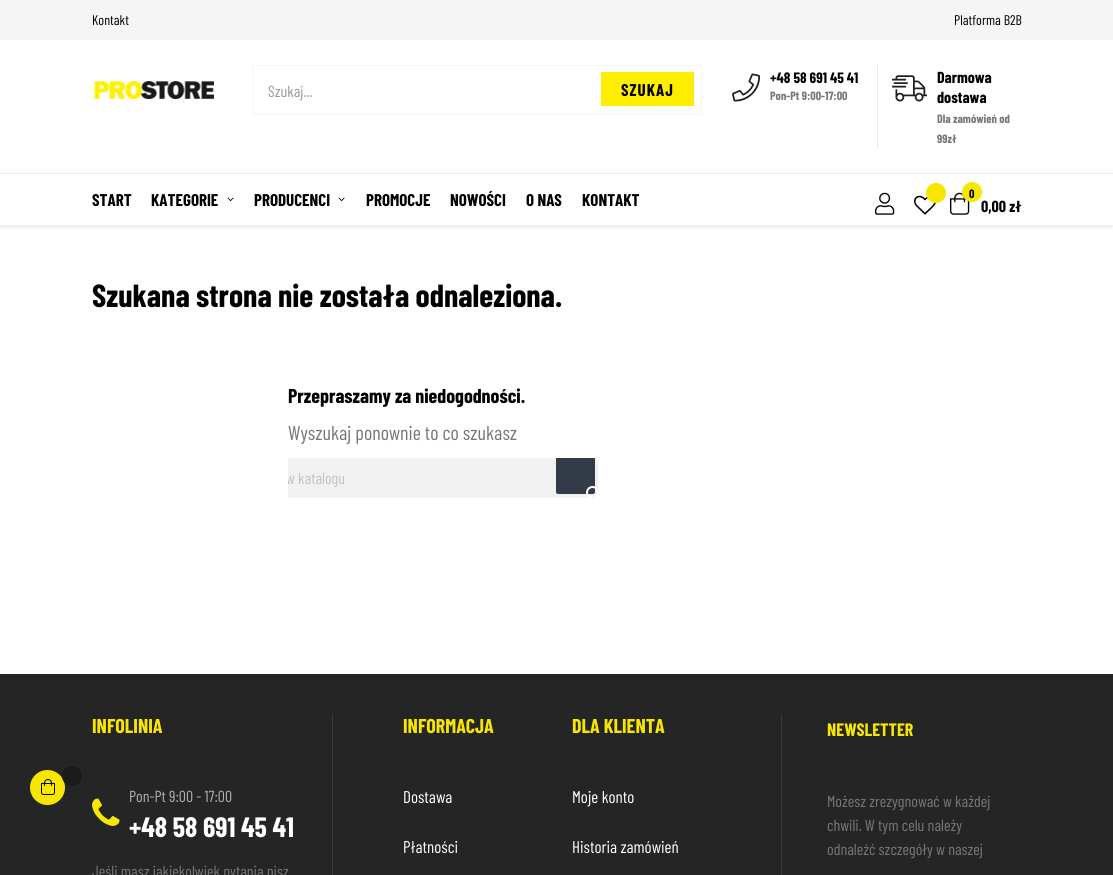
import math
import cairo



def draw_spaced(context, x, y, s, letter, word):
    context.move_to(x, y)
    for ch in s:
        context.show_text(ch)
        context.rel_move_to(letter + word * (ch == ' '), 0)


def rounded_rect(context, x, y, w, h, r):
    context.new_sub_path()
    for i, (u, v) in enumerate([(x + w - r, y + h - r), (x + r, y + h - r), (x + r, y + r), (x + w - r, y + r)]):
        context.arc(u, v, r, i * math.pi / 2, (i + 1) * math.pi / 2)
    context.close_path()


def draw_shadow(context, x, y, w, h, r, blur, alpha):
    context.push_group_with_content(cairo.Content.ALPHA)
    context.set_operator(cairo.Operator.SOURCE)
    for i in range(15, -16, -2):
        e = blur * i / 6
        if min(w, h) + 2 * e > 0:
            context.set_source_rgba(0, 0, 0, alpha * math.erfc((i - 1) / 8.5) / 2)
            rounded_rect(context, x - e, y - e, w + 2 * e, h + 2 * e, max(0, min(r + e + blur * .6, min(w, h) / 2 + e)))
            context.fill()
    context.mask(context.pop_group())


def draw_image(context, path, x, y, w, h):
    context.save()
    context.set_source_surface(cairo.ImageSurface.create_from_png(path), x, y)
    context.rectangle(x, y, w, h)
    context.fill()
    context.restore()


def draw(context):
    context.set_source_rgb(1, 1, 1)
    context.paint()
    context.set_source_rgb(37 / 255, 37 / 255, 37 / 255)
    context.rectangle(0, 674, 1113, 201)
    context.fill()
    context.set_source_rgb(247 / 255, 230 / 255, 0)
    context.arc(47.5, 787.5, 17.5, 0, 2 * math.pi)
    context.fill()
    draw_image(context, "images/1.png", 41, 779, 14, 16)
    context.set_source_rgb(26 / 255, 26 / 255, 26 / 255)
    context.arc(72, 776, 10, 0, 2 * math.pi)
    context.fill()
    context.set_source_rgb(234 / 255, 234 / 255, 234 / 255)
    context.rectangle(0, 173, 1113, 1)
    context.fill()
    context.set_source_rgb(245 / 255, 245 / 255, 245 / 255)
    context.rectangle(0, 0, 1113, 40)
    context.fill()
    draw_image(context, "images/2.png", 94, 81, 120, 18)
    context.rectangle(252.5, 65.5, 449, 49)
    context.set_line_width(1)
    context.stroke()
    context.set_source_rgb(1, 238 / 255, 0)
    context.rectangle(601, 72, 93, 34)
    context.fill()
    draw_image(context, "images/3.png", 732, 73, 29, 29)
    context.set_source_rgb(234 / 255, 234 / 255, 234 / 255)
    context.rectangle(877, 65, 1, 83)
    context.fill()
    draw_image(context, "images/4.png", 892, 75, 35, 27)
    context.save()
    context.rectangle(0, 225, 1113, 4)
    context.clip()
    context.set_source_rgb(0, 0, 0)
    draw_shadow(context, 0, 176, 1113, 51, 0, 2.5, 0.1)
    context.restore()
    draw_image(context, "images/5.png", 227, 197, 7, 5)
    draw_image(context, "images/5.png", 338, 197, 7, 5)
    draw_image(context, "images/6.png", 875, 192, 20, 23)
    draw_image(context, "images/7.png", 914, 195, 22, 20)
    context.set_source_rgb(247 / 255, 230 / 255, 0)
    context.arc(936, 193, 9.5, 0, 2 * math.pi)
    context.fill_preserve()
    context.stroke()
    draw_image(context, "images/8.png", 950, 192, 20, 23)
    context.set_source_rgb(241 / 255, 241 / 255, 241 / 255)
    context.new_path()
    context.move_to(288, 458)
    context.line_to(593, 458)
    context.curve_to(596, 458, 598, 460, 598, 463)
    context.line_to(598, 493)
    context.curve_to(598, 496, 596, 498, 593, 498)
    context.line_to(288, 498)
    context.close_path()
    context.fill()
    context.set_source_rgb(51 / 255, 59 / 255, 72 / 255)
    context.new_path()
    context.move_to(556, 458)
    context.line_to(595, 458)
    context.line_to(595, 492)
    context.curve_to(595, 493, 594, 494, 593, 494)
    context.line_to(558, 494)
    context.curve_to(557, 494, 556, 493, 556, 492)
    context.close_path()
    context.fill()
    draw_image(context, "images/9.png", 586, 486, 12, 12)
    draw_image(context, "images/10.png", 92, 798, 28, 28)
    context.set_source_rgb(59 / 255, 59 / 255, 59 / 255)
    context.rectangle(332, 714, 1, 161)
    context.fill()
    context.rectangle(781, 714, 1, 161)
    context.fill()
    context.select_font_face("Barlow Condensed")
    context.set_font_size(14)
    context.set_source_rgb(0, 0, 0)
    context.move_to(92, 25)
    context.show_text("Kontakt")
    context.move_to(954, 25)
    context.show_text("Platforma B2B")
    context.set_font_size(16)
    context.set_source_rgb(153 / 255, 153 / 255, 153 / 255)
    context.move_to(268, 97)
    context.show_text("Szukaj...")
    context.select_font_face("Barlow Condensed", cairo.FontSlant.NORMAL, cairo.FontWeight.BOLD)
    context.set_font_size(17)
    context.set_source_rgb(0, 0, 0)
    draw_spaced(context, 621, 96, "SZUKAJ", 1, 0)
    context.set_font_size(15)
    context.move_to(770, 83)
    context.show_text("+48 58 691 45 41")
    context.set_font_size(12)
    context.set_source_rgb(119 / 255, 119 / 255, 119 / 255)
    context.move_to(770, 100)
    context.show_text("Pon-Pt 9:00-17:00")
    context.set_font_size(16)
    context.set_source_rgb(0, 0, 0)
    context.move_to(937, 83)
    context.show_text("Darmowa")
    context.move_to(937, 103)
    context.show_text("dostawa")
    context.set_font_size(12)
    context.set_source_rgb(119 / 255, 119 / 255, 119 / 255)
    context.move_to(937, 123)
    context.show_text("Dla zamówień od")
    context.move_to(937, 143)
    context.show_text("99zł")
    context.set_font_size(17)
    context.set_source_rgb(0, 0, 0)
    context.move_to(92, 206)
    context.show_text("START")
    context.move_to(151, 206)
    context.show_text("KATEGORIE")
    context.move_to(254, 206)
    context.show_text("PRODUCENCI")
    context.move_to(366, 206)
    context.show_text("PROMOCJE")
    context.move_to(450, 206)
    context.show_text("NOWOŚCI")
    context.move_to(526, 206)
    context.show_text("O NAS")
    context.move_to(582, 206)
    context.show_text("KONTAKT")
    context.set_font_size(16)
    context.move_to(981, 212)
    context.show_text("0,00 zł")
    context.set_source_rgb(247 / 255, 230 / 255, 0)
    context.new_path()
    context.arc(972, 192, 9.5, 0, 2 * math.pi)
    context.fill_preserve()
    context.stroke()
    context.set_font_size(12)
    context.set_source_rgb(0, 0, 0)
    context.move_to(969, 198)
    context.show_text("0")
    context.set_font_size(32)
    context.move_to(92, 307)
    context.show_text("Szukana strona nie została odnaleziona.")
    context.set_font_size(20)
    context.move_to(288, 403)
    context.show_text("Przepraszamy za niedogodności.")
    context.select_font_face("Barlow Condensed")
    context.set_source_rgb(119 / 255, 119 / 255, 119 / 255)
    context.move_to(288, 440)
    context.show_text("Wyszukaj ponownie to co szukasz")
    context.save()
    context.rectangle(288, 468, 290, 19)
    context.clip()
    context.set_font_size(16)
    context.set_source_rgb(194 / 255, 194 / 255, 194 / 255)
    context.move_to(286, 484)
    context.show_text("w katalogu")
    context.restore()
    context.select_font_face("Barlow Condensed", cairo.FontSlant.NORMAL, cairo.FontWeight.BOLD)
    context.set_source_rgb(247 / 255, 230 / 255, 0)
    context.move_to(92, 733)
    context.show_text("INFOLINIA")
    context.select_font_face("Barlow Condensed")
    context.set_font_size(16)
    context.set_source_rgb(176 / 255, 176 / 255, 176 / 255)
    context.move_to(129, 802)
    context.show_text("Pon-Pt 9:00 - 17:00")
    context.select_font_face("Barlow Condensed", cairo.FontSlant.NORMAL, cairo.FontWeight.BOLD)
    context.set_font_size(28)
    context.set_source_rgb(1, 1, 1)
    context.move_to(129, 837)
    context.show_text("+48 58 691 45 41")
    context.select_font_face("Barlow Condensed")
    context.set_font_size(16)
    context.set_source_rgb(119 / 255, 119 / 255, 119 / 255)
    context.move_to(92, 877)
    context.show_text("Jeśli masz jakiekolwiek pytania pisz")
    context.select_font_face("Barlow Condensed", cairo.FontSlant.NORMAL, cairo.FontWeight.BOLD)
    context.set_font_size(20)
    context.set_source_rgb(247 / 255, 230 / 255, 0)
    context.move_to(403, 733)
    context.show_text("INFORMACJA")
    context.select_font_face("Barlow Condensed")
    context.set_font_size(17)
    context.set_source_rgb(1, 1, 1)
    context.move_to(403, 803)
    context.show_text("Dostawa")
    context.move_to(403, 853)
    context.show_text("Płatności")
    context.select_font_face("Barlow Condensed", cairo.FontSlant.NORMAL, cairo.FontWeight.BOLD)
    context.set_font_size(20)
    context.set_source_rgb(247 / 255, 230 / 255, 0)
    context.move_to(572, 733)
    context.show_text("DLA KLIENTA")
    context.select_font_face("Barlow Condensed")
    context.set_font_size(17)
    context.set_source_rgb(1, 1, 1)
    context.move_to(572, 803)
    context.show_text("Moje konto")
    context.move_to(572, 853)
    context.show_text("Historia zamówień")
    context.select_font_face("Barlow Condensed", cairo.FontSlant.NORMAL, cairo.FontWeight.BOLD)
    context.set_font_size(18)
    context.set_source_rgb(247 / 255, 230 / 255, 0)
    context.move_to(827, 736)
    context.show_text("NEWSLETTER")
    context.select_font_face("Barlow Condensed")
    context.set_font_size(16)
    context.set_source_rgb(119 / 255, 119 / 255, 119 / 255)
    context.move_to(827, 807)
    context.show_text("Możesz zrezygnować w każdej")
    context.move_to(827, 831)
    context.show_text("chwili. W tym celu należy")
    context.move_to(827, 855)
    context.show_text("odnaleźć szczegóły w naszej")


surface = cairo.ImageSurface(cairo.Format.RGB24, 1113, 875)
context = cairo.Context(surface)
options = cairo.FontOptions()
options.set_hint_metrics(cairo.HintMetrics.OFF)
options.set_hint_style(cairo.HintStyle.NONE)
context.set_font_options(options)
context.set_miter_limit(4)
draw(context)
surface.write_to_png("out.png")
